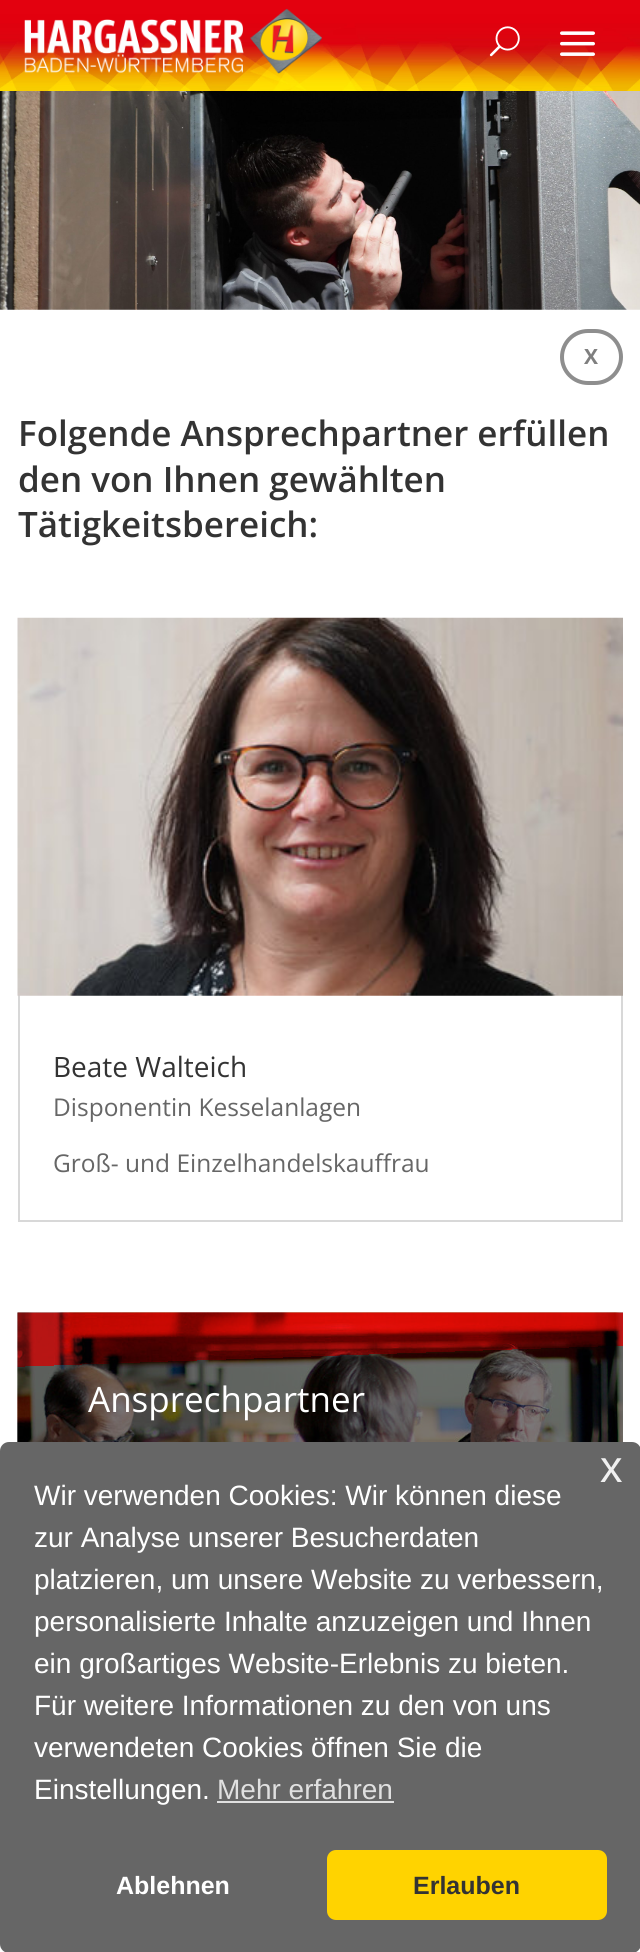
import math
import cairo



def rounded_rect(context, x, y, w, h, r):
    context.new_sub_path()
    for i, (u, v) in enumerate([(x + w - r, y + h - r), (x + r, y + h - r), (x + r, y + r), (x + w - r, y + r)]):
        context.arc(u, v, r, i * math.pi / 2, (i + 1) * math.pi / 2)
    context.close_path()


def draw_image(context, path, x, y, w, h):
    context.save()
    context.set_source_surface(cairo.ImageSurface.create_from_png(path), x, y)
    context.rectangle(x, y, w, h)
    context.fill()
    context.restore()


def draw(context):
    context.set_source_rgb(1, 1, 1)
    context.paint()
    draw_image(context, "images/1.png", 0, 0, 640, 91)
    draw_image(context, "images/2.png", 24, 8, 298, 66)
    draw_image(context, "images/3.png", 489, 26, 31, 31)
    draw_image(context, "images/4.png", 560, 31, 35, 25)
    draw_image(context, "images/5.png", 0, 91, 640, 219)
    rounded_rect(context, 562, 331, 59, 52, 26)
    context.set_source_rgb(142 / 255, 142 / 255, 142 / 255)
    context.set_line_width(4)
    context.stroke()
    context.rectangle(19, 619, 603, 602)
    context.set_source_rgb(216 / 255, 216 / 255, 216 / 255)
    context.set_line_width(2)
    context.stroke()
    draw_image(context, "images/6.png", 17, 617, 606, 379)
    draw_image(context, "images/7.png", 17, 1312, 606, 130)
    context.set_source_rgb(102 / 255, 102 / 255, 102 / 255)
    rounded_rect(context, 0, 1442, 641, 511, 9)
    context.fill()
    context.set_source_rgb(224 / 255, 224 / 255, 224 / 255)
    context.rectangle(217, 1801, 177, 2)
    context.fill()
    context.set_source_rgb(1, 211 / 255, 0)
    rounded_rect(context, 327, 1850, 280, 70, 9)
    context.fill()
    context.select_font_face("Open Sans", cairo.FontSlant.NORMAL, cairo.FontWeight.BOLD)
    context.set_font_size(21)
    context.set_source_rgb(127 / 255, 127 / 255, 127 / 255)
    context.move_to(584, 364)
    context.show_text("X")
    context.select_font_face("Open Sans SemiBold")
    context.set_font_size(35)
    context.set_source_rgb(51 / 255, 51 / 255, 51 / 255)
    context.move_to(18, 446)
    context.show_text("Folgende Ansprechpartner erfüllen")
    context.move_to(18, 492)
    context.show_text("den von Ihnen gewählten")
    context.move_to(18, 537)
    context.show_text("Tätigkeitsbereich:")
    context.select_font_face("Open Sans")
    context.set_font_size(28)
    context.move_to(53, 1077)
    context.show_text("Beate Walteich")
    context.set_font_size(24.5)
    context.set_source_rgb(102 / 255, 102 / 255, 102 / 255)
    context.move_to(53, 1116)
    context.show_text("Disponentin Kesselanlagen")
    context.move_to(53, 1172)
    context.show_text("Groß- und Einzelhandelskauffrau")
    context.set_font_size(35)
    context.set_source_rgb(1, 1, 1)
    context.move_to(88, 1412)
    context.show_text("Ansprechpartner")
    context.select_font_face("Liberation Sans")
    context.set_font_size(45)
    context.set_source_rgb(240 / 255, 240 / 255, 240 / 255)
    context.move_to(600, 1482)
    context.show_text("x")
    context.set_font_size(28)
    context.set_source_rgb(1, 1, 1)
    context.move_to(34, 1505)
    context.show_text("Wir verwenden Cookies: Wir können diese")
    context.move_to(34, 1547)
    context.show_text("zur Analyse unserer Besucherdaten")
    context.move_to(34, 1589)
    context.show_text("platzieren, um unsere Website zu verbessern,")
    context.move_to(34, 1631)
    context.show_text("personalisierte Inhalte anzuzeigen und Ihnen")
    context.move_to(34, 1673)
    context.show_text("ein großartiges Website-Erlebnis zu bieten.")
    context.move_to(34, 1715)
    context.show_text("Für weitere Informationen zu den von uns")
    context.move_to(34, 1757)
    context.show_text("verwendeten Cookies öffnen Sie die")
    context.move_to(34, 1799)
    context.show_text("Einstellungen.")
    context.set_source_rgb(224 / 255, 224 / 255, 224 / 255)
    context.move_to(217, 1799)
    context.show_text("Mehr erfahren")
    context.select_font_face("Liberation Sans", cairo.FontSlant.NORMAL, cairo.FontWeight.BOLD)
    context.set_font_size(25)
    context.set_source_rgb(1, 1, 1)
    context.move_to(116, 1894)
    context.show_text("Ablehnen")
    context.set_source_rgb(51 / 255, 51 / 255, 51 / 255)
    context.move_to(413, 1894)
    context.show_text("Erlauben")


surface = cairo.ImageSurface(cairo.Format.RGB24, 640, 1952)
context = cairo.Context(surface)
options = cairo.FontOptions()
options.set_hint_metrics(cairo.HintMetrics.OFF)
options.set_hint_style(cairo.HintStyle.NONE)
context.set_font_options(options)
context.set_miter_limit(4)
draw(context)
surface.write_to_png("out.png")
